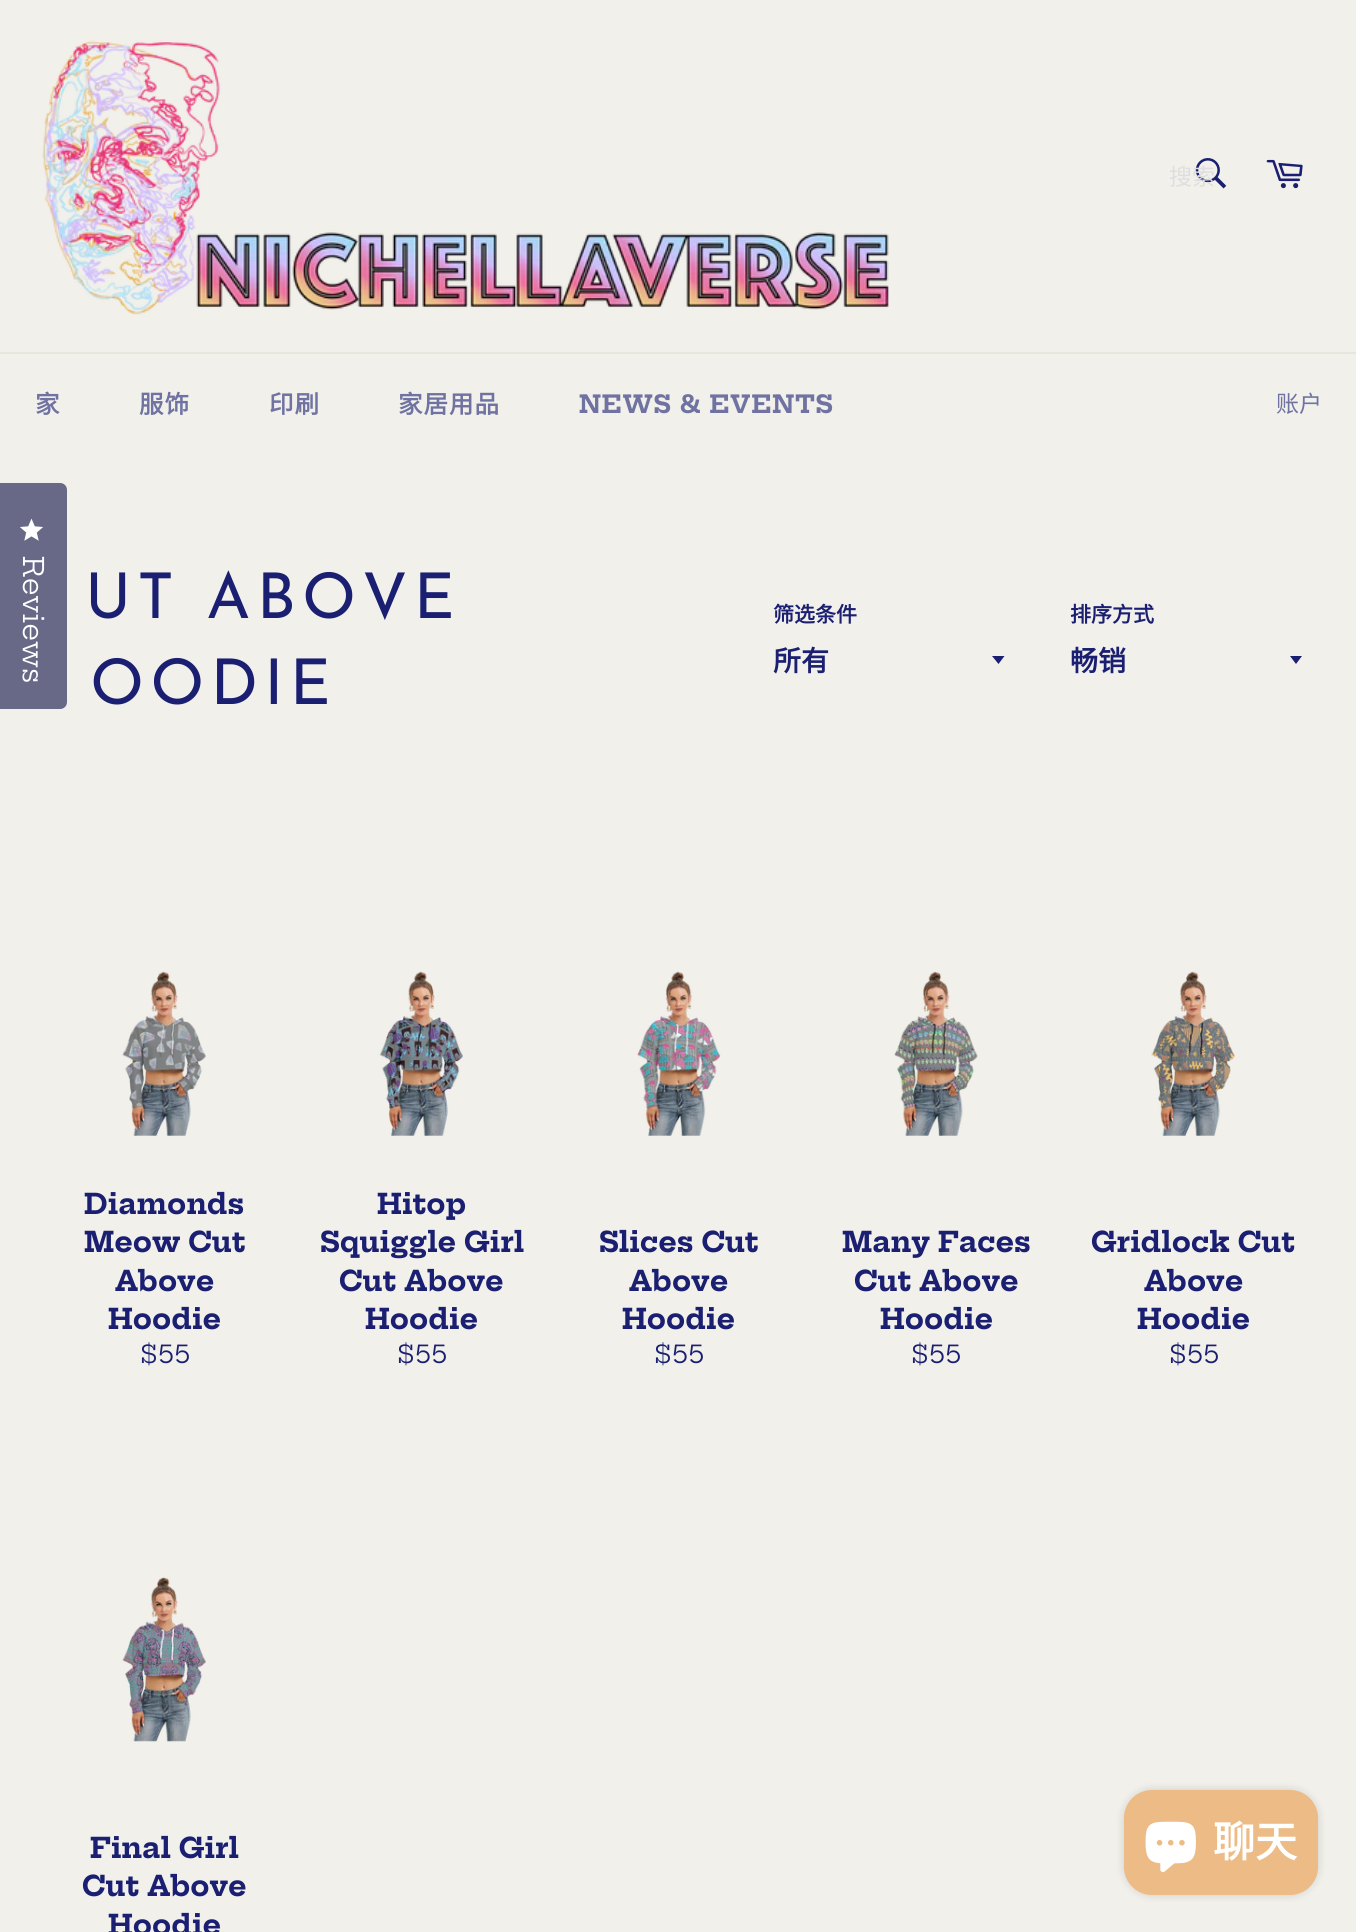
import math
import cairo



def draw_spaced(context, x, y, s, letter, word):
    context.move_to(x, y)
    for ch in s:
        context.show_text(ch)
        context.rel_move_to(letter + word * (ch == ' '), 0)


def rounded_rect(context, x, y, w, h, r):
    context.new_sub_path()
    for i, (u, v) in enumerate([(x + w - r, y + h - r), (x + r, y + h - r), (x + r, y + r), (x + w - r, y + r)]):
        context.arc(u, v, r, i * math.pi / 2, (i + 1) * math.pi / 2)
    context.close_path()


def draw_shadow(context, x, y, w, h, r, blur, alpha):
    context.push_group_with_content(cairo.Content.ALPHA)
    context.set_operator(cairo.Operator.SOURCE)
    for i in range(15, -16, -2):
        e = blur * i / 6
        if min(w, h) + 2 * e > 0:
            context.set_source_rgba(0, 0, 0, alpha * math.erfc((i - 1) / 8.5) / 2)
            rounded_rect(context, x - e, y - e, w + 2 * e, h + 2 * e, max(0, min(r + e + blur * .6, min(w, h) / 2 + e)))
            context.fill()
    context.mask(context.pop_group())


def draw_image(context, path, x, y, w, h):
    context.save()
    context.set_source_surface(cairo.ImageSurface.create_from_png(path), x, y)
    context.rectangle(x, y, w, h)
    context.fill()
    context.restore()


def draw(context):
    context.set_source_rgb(241 / 255, 240 / 255, 235 / 255)
    context.paint()
    draw_image(context, "images/1.png", 42, 40, 847, 275)
    draw_image(context, "images/2.png", 1195, 158, 32, 31)
    draw_image(context, "images/3.png", 1266, 159, 37, 30)
    context.set_source_rgb(231 / 255, 229 / 255, 220 / 255)
    context.rectangle(0, 352, 1356, 2)
    context.fill()
    context.set_source_rgb(103 / 255, 105 / 255, 134 / 255)
    context.new_path()
    context.move_to(-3, 483)
    context.line_to(60, 483)
    context.curve_to(64, 483, 67, 486, 67, 490)
    context.line_to(67, 702)
    context.curve_to(67, 706, 64, 709, 60, 709)
    context.line_to(-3, 709)
    context.close_path()
    context.fill()
    draw_image(context, "images/4.png", 20, 518, 23, 23)
    context.set_source_rgb(26 / 255, 31 / 255, 113 / 255)
    context.new_path()
    context.move_to(992, 656)
    context.line_to(998.5, 664)
    context.line_to(1004.5, 656)
    context.close_path()
    context.fill()
    context.new_path()
    context.move_to(1290, 656)
    context.line_to(1296, 664)
    context.line_to(1302, 656)
    context.close_path()
    context.fill()
    draw_image(context, "images/5.png", 122, 971, 84, 165)
    draw_image(context, "images/6.png", 379, 971, 84, 165)
    draw_image(context, "images/7.png", 637, 971, 84, 165)
    draw_image(context, "images/8.png", 894, 971, 84, 165)
    draw_image(context, "images/9.png", 1151, 971, 84, 165)
    draw_image(context, "images/10.png", 122, 1577, 84, 165)
    context.set_source_rgb(0, 0, 0)
    draw_shadow(context, 1124, 1790, 194, 105, 28, 4.5, 0.15)
    context.set_source_rgb(237 / 255, 187 / 255, 133 / 255)
    rounded_rect(context, 1124, 1790, 194, 105, 28)
    context.fill()
    draw_image(context, "images/11.png", 1145, 1821, 51, 52)
    context.select_font_face("Noto Sans CJK SC")
    context.set_font_size(23)
    context.set_source_rgb(222 / 255, 222 / 255, 224 / 255)
    context.move_to(1169, 185)
    context.show_text("搜索")
    context.select_font_face("Noto Sans CJK SC", cairo.FontSlant.NORMAL, cairo.FontWeight.BOLD)
    context.set_font_size(24.5)
    context.set_source_rgb(112 / 255, 115 / 255, 162 / 255)
    draw_spaced(context, 35, 413, "家", 1, 0)
    draw_spaced(context, 139, 413, "服饰", 1, 0)
    draw_spaced(context, 269, 413, "印刷", 1, 0)
    draw_spaced(context, 398, 413, "家居用品", 1, 0)
    context.select_font_face("Hepta Slab", cairo.FontSlant.NORMAL, cairo.FontWeight.BOLD)
    draw_spaced(context, 579, 413, "NEWS & EVENTS", 1, 0)
    context.select_font_face("Noto Sans CJK SC")
    context.set_font_size(23)
    context.move_to(1276, 412)
    context.show_text("账户")
    context.select_font_face("Hepta Slab")
    context.set_font_size(28)
    context.set_source_rgb(1, 1, 1)
    context.save()
    context.translate(23, 556)
    context.rotate(90.1 * math.pi / 180)
    context.move_to(0, 0)
    context.show_text("Reviews")
    context.restore()
    context.select_font_face("Josefin Sans")
    context.set_font_size(63)
    context.set_source_rgb(26 / 255, 31 / 255, 113 / 255)
    draw_spaced(context, 85, 618, "UT ABOVE", 6.25, 0)
    draw_spaced(context, 90, 704, "OODIE", 6.25, 0)
    context.select_font_face("Noto Sans CJK SC", cairo.FontSlant.NORMAL, cairo.FontWeight.BOLD)
    context.set_font_size(21)
    context.move_to(773, 622)
    context.show_text("筛选条件")
    context.set_font_size(28)
    context.move_to(773, 671)
    context.show_text("所有")
    context.set_font_size(21)
    context.move_to(1070, 622)
    context.show_text("排序方式")
    context.set_font_size(28)
    context.move_to(1070, 671)
    context.show_text("畅销")
    context.select_font_face("Hepta Slab", cairo.FontSlant.NORMAL, cairo.FontWeight.BOLD)
    context.move_to(84, 1214)
    context.show_text("Diamonds")
    context.move_to(84, 1252)
    context.show_text("Meow Cut")
    context.move_to(115, 1291)
    context.show_text("Above")
    context.move_to(108, 1329)
    context.show_text("Hoodie")
    context.select_font_face("Hepta Slab")
    context.set_font_size(24.5)
    context.move_to(140, 1363)
    context.show_text("$55")
    context.select_font_face("Hepta Slab", cairo.FontSlant.NORMAL, cairo.FontWeight.BOLD)
    context.set_font_size(28)
    context.move_to(377, 1214)
    context.show_text("Hitop")
    context.move_to(320, 1252)
    context.show_text("Squiggle Girl")
    context.move_to(339, 1291)
    context.show_text("Cut Above")
    context.move_to(365, 1329)
    context.show_text("Hoodie")
    context.select_font_face("Hepta Slab")
    context.set_font_size(24.5)
    context.move_to(397, 1363)
    context.show_text("$55")
    context.select_font_face("Hepta Slab", cairo.FontSlant.NORMAL, cairo.FontWeight.BOLD)
    context.set_font_size(28)
    context.move_to(599, 1252)
    context.show_text("Slices Cut")
    context.move_to(629, 1291)
    context.show_text("Above")
    context.move_to(622, 1329)
    context.show_text("Hoodie")
    context.select_font_face("Hepta Slab")
    context.set_font_size(24.5)
    context.move_to(654, 1363)
    context.show_text("$55")
    context.select_font_face("Hepta Slab", cairo.FontSlant.NORMAL, cairo.FontWeight.BOLD)
    context.set_font_size(28)
    context.move_to(842, 1252)
    context.show_text("Many Faces")
    context.move_to(854, 1291)
    context.show_text("Cut Above")
    context.move_to(880, 1329)
    context.show_text("Hoodie")
    context.select_font_face("Hepta Slab")
    context.set_font_size(24.5)
    context.move_to(911, 1363)
    context.show_text("$55")
    context.select_font_face("Hepta Slab", cairo.FontSlant.NORMAL, cairo.FontWeight.BOLD)
    context.set_font_size(28)
    context.move_to(1091, 1252)
    context.show_text("Gridlock Cut")
    context.move_to(1144, 1291)
    context.show_text("Above")
    context.move_to(1137, 1329)
    context.show_text("Hoodie")
    context.select_font_face("Hepta Slab")
    context.set_font_size(24.5)
    context.move_to(1169, 1363)
    context.show_text("$55")
    context.select_font_face("Hepta Slab", cairo.FontSlant.NORMAL, cairo.FontWeight.BOLD)
    context.set_font_size(28)
    context.move_to(90, 1858)
    context.show_text("Final Girl")
    context.move_to(82, 1896)
    context.show_text("Cut Above")
    context.move_to(108, 1935)
    context.show_text("Hoodie")
    context.select_font_face("Noto Sans CJK SC", cairo.FontSlant.NORMAL, cairo.FontWeight.BOLD)
    context.set_font_size(42)
    context.set_source_rgb(1, 1, 1)
    context.move_to(1213, 1857)
    context.show_text("聊天")


surface = cairo.ImageSurface(cairo.Format.RGB24, 1356, 1932)
context = cairo.Context(surface)
options = cairo.FontOptions()
options.set_hint_metrics(cairo.HintMetrics.OFF)
options.set_hint_style(cairo.HintStyle.NONE)
context.set_font_options(options)
context.set_miter_limit(4)
draw(context)
surface.write_to_png("out.png")
